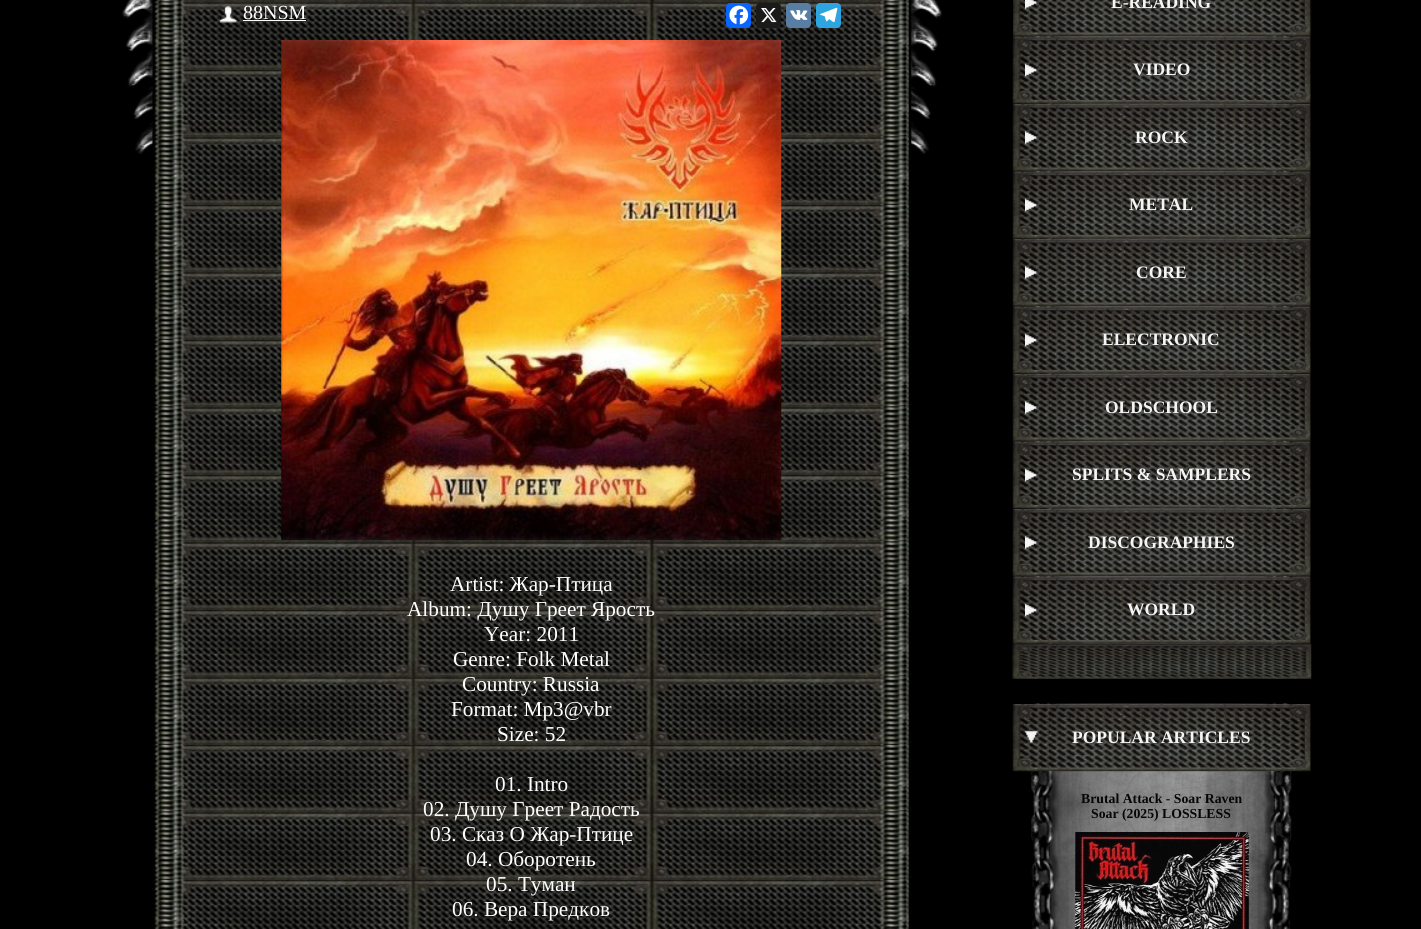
import math
import cairo



def rounded_rect(context, x, y, w, h, r):
    context.new_sub_path()
    for i, (u, v) in enumerate([(x + w - r, y + h - r), (x + r, y + h - r), (x + r, y + r), (x + w - r, y + r)]):
        context.arc(u, v, r, i * math.pi / 2, (i + 1) * math.pi / 2)
    context.close_path()


def draw_image(context, path, x, y, w, h):
    context.save()
    context.set_source_surface(cairo.ImageSurface.create_from_png(path), x, y)
    context.rectangle(x, y, w, h)
    context.fill()
    context.restore()


def draw(context):
    context.set_source_rgb(0, 0, 0)
    context.paint()
    draw_image(context, "images/1.png", 122, 0, 820, 154)
    draw_image(context, "images/2.png", 152, 0, 760, 929)
    draw_image(context, "images/3.png", 219, 6, 19, 17)
    context.set_source_rgb(1, 1, 1)
    context.rectangle(243, 20, 63, 1)
    context.fill()
    context.set_source_rgb(8 / 255, 102 / 255, 1)
    rounded_rect(context, 726, 3, 25, 25, 4)
    context.fill()
    draw_image(context, "images/4.png", 729, 5, 20, 20)
    context.set_source_rgb(26 / 255, 26 / 255, 26 / 255)
    rounded_rect(context, 756, 3, 25, 25, 4)
    context.fill()
    draw_image(context, "images/5.png", 761, 8, 16, 15)
    context.set_source_rgb(88 / 255, 126 / 255, 163 / 255)
    rounded_rect(context, 786, 3, 25, 25, 4)
    context.fill()
    draw_image(context, "images/6.png", 790, 10, 18, 10)
    context.set_source_rgb(44 / 255, 165 / 255, 224 / 255)
    rounded_rect(context, 816, 3, 25, 25, 4)
    context.fill()
    draw_image(context, "images/7.png", 820, 7, 18, 16)
    draw_image(context, "images/8.png", 281, 40, 501, 500)
    draw_image(context, "images/9.png", 1012, 643, 300, 36)
    draw_image(context, "images/10.png", 1031, 0, 261, 37)
    draw_image(context, "images/13.png", 1031, 36, 261, 68)
    draw_image(context, "images/11.png", 1013, 0, 299, 37)
    draw_image(context, "images/12.png", 1025, 0, 12, 9)
    draw_image(context, "images/16.png", 1031, 103, 261, 69)
    draw_image(context, "images/14.png", 1012, 36, 299, 68)
    draw_image(context, "images/15.png", 1025, 63, 12, 14)
    draw_image(context, "images/19.png", 1031, 171, 261, 68)
    draw_image(context, "images/17.png", 1012, 104, 299, 68)
    draw_image(context, "images/18.png", 1025, 131, 12, 13)
    draw_image(context, "images/21.png", 1031, 238, 261, 69)
    draw_image(context, "images/20.png", 1012, 171, 299, 68)
    draw_image(context, "images/15.png", 1025, 198, 12, 14)
    draw_image(context, "images/19.png", 1031, 306, 261, 68)
    draw_image(context, "images/17.png", 1012, 239, 299, 68)
    draw_image(context, "images/22.png", 1025, 266, 12, 13)
    draw_image(context, "images/23.png", 1031, 373, 261, 69)
    draw_image(context, "images/20.png", 1012, 306, 299, 68)
    draw_image(context, "images/15.png", 1025, 333, 12, 14)
    draw_image(context, "images/19.png", 1031, 441, 261, 68)
    draw_image(context, "images/24.png", 1012, 374, 299, 68)
    draw_image(context, "images/22.png", 1025, 401, 12, 13)
    draw_image(context, "images/26.png", 1031, 508, 261, 69)
    draw_image(context, "images/25.png", 1012, 441, 299, 68)
    draw_image(context, "images/15.png", 1025, 468, 12, 14)
    draw_image(context, "images/28.png", 1031, 576, 261, 68)
    draw_image(context, "images/27.png", 1012, 509, 299, 68)
    draw_image(context, "images/22.png", 1025, 536, 12, 13)
    draw_image(context, "images/29.png", 1012, 576, 299, 68)
    draw_image(context, "images/15.png", 1025, 603, 12, 14)
    draw_image(context, "images/30.png", 1031, 703, 261, 226)
    draw_image(context, "images/31.png", 1012, 704, 299, 68)
    draw_image(context, "images/32.png", 1025, 731, 13, 12)
    draw_image(context, "images/33.png", 1075, 832, 174, 97)
    context.select_font_face("Liberation Serif")
    context.set_font_size(20)
    context.set_source_rgb(1, 1, 1)
    context.move_to(243, 19)
    context.show_text("88NSM")
    context.set_font_size(21.25)
    context.move_to(450, 591)
    context.show_text("Artist: Жар-Птица")
    context.move_to(407, 616)
    context.show_text("Album: Душу Греет Ярость")
    context.move_to(484, 641)
    context.show_text("Year: 2011")
    context.move_to(453, 666)
    context.show_text("Genre: Folk Metal")
    context.move_to(462, 691)
    context.show_text("Country: Russia")
    context.move_to(451, 716)
    context.show_text("Format: Mp3@vbr")
    context.move_to(497, 741)
    context.show_text("Size: 52")
    context.move_to(495, 791)
    context.show_text("01. Intro")
    context.move_to(423, 816)
    context.show_text("02. Душу Греет Радость")
    context.move_to(430, 841)
    context.show_text("03. Сказ О Жар-Птице")
    context.move_to(466, 866)
    context.show_text("04. Оборотень")
    context.move_to(486, 891)
    context.show_text("05. Туман")
    context.move_to(452, 916)
    context.show_text("06. Вера Предков")
    context.select_font_face("Liberation Serif", cairo.FontSlant.NORMAL, cairo.FontWeight.BOLD)
    context.set_font_size(17.5)
    context.set_source_rgb(245 / 255, 245 / 255, 245 / 255)
    context.move_to(1111, 8)
    context.show_text("E-READING")
    context.move_to(1133, 75)
    context.show_text("VIDEO")
    context.move_to(1135, 143)
    context.show_text("ROCK")
    context.move_to(1129, 210)
    context.show_text("METAL")
    context.move_to(1136, 278)
    context.show_text("CORE")
    context.move_to(1102, 345)
    context.show_text("ELECTRONIC")
    context.move_to(1105, 413)
    context.show_text("OLDSCHOOL")
    context.move_to(1072, 480)
    context.show_text("SPLITS & SAMPLERS")
    context.move_to(1088, 548)
    context.show_text("DISCOGRAPHIES")
    context.move_to(1127, 615)
    context.show_text("WORLD")
    context.move_to(1072, 743)
    context.show_text("POPULAR ARTICLES")
    context.set_font_size(13.75)
    context.set_source_rgb(6 / 255, 6 / 255, 6 / 255)
    context.move_to(1081, 803)
    context.show_text("Brutal Attack - Soar Raven")
    context.move_to(1091, 818)
    context.show_text("Soar (2025) LOSSLESS")


surface = cairo.ImageSurface(cairo.Format.RGB24, 1421, 929)
context = cairo.Context(surface)
options = cairo.FontOptions()
options.set_hint_metrics(cairo.HintMetrics.OFF)
options.set_hint_style(cairo.HintStyle.NONE)
context.set_font_options(options)
context.set_miter_limit(4)
draw(context)
surface.write_to_png("out.png")
